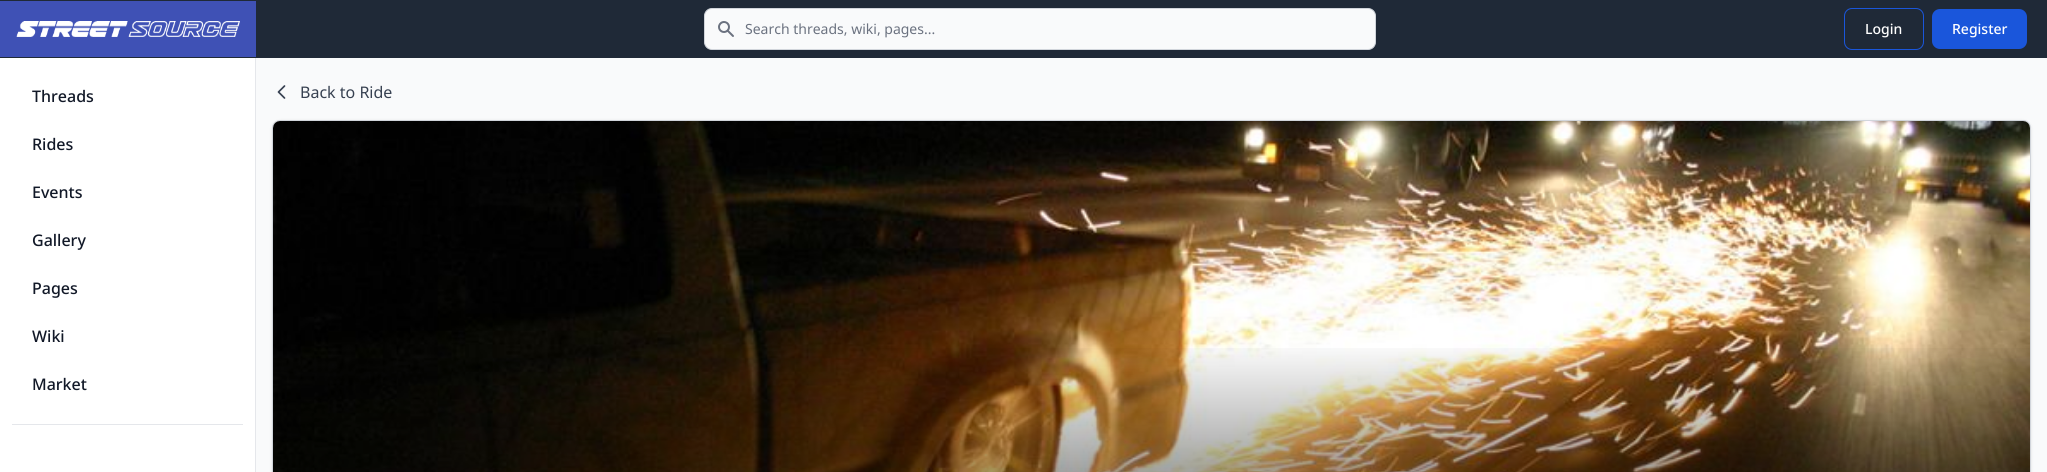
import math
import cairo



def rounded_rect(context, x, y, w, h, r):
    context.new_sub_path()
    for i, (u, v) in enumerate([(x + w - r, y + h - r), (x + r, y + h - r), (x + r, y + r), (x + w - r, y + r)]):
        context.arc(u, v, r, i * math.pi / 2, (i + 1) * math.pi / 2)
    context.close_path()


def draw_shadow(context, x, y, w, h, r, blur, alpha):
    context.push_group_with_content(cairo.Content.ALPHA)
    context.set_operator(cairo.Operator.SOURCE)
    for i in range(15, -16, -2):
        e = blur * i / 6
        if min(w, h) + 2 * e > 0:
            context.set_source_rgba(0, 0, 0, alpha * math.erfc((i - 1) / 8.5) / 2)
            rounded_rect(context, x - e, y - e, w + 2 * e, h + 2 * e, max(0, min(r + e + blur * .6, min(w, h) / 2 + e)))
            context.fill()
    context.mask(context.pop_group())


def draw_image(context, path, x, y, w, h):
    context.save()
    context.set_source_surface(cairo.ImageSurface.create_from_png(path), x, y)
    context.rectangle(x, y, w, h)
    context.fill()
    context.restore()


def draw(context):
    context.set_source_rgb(249 / 255, 250 / 255, 251 / 255)
    context.paint()
    context.set_source_rgb(31 / 255, 41 / 255, 55 / 255)
    context.rectangle(0, 0, 2047, 58)
    context.fill()
    context.set_source_rgb(63 / 255, 81 / 255, 181 / 255)
    context.rectangle(0, 1, 256, 56)
    context.fill()
    draw_image(context, "images/1.png", 16, 21, 224, 16)
    context.set_source_rgb(249 / 255, 250 / 255, 251 / 255)
    rounded_rect(context, 704.5, 8.5, 671, 41, 7.5)
    context.fill_preserve()
    context.set_source_rgb(209 / 255, 213 / 255, 219 / 255)
    context.set_line_width(1)
    context.stroke()
    draw_image(context, "images/2.png", 718, 21, 16, 16)
    rounded_rect(context, 1844.5, 8.5, 79, 41, 7.5)
    context.set_source_rgb(26 / 255, 86 / 255, 219 / 255)
    context.stroke()
    rounded_rect(context, 1932, 9, 95, 40, 8)
    context.fill()
    context.set_source_rgb(1, 1, 1)
    context.rectangle(0, 58, 255, 414)
    context.fill()
    context.set_source_rgb(229 / 255, 231 / 255, 235 / 255)
    context.rectangle(255, 58, 1, 414)
    context.fill()
    context.rectangle(12, 424, 231, 1)
    context.fill()
    context.new_path()
    context.move_to(284.5, 98)
    context.line_to(278.5, 92)
    context.line_to(284.5, 86)
    context.set_source_rgb(55 / 255, 65 / 255, 81 / 255)
    context.set_line_width(1.7)
    context.set_line_cap(cairo.LineCap.ROUND)
    context.set_line_join(cairo.LineJoin.ROUND)
    context.stroke()
    context.set_source_rgb(0, 0, 0)
    draw_shadow(context, 272, 121, 1759, 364, 8, 1.5, 0.1)
    rounded_rect(context, 272.5, 120.5, 1758, 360, 7.5)
    context.set_source_rgb(209 / 255, 213 / 255, 219 / 255)
    context.set_line_width(1)
    context.set_line_cap(cairo.LineCap.BUTT)
    context.set_line_join(cairo.LineJoin.MITER)
    context.stroke()
    draw_image(context, "images/3.png", 273, 121, 1757, 351)
    gradient = cairo.LinearGradient(1152, 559, 1152, 121)
    gradient.add_color_stop_rgba(0, 0, 0, 0, 0.6)
    gradient.add_color_stop_rgba(0.5, 0, 0, 0, 0)
    gradient.add_color_stop_rgba(1, 0, 0, 0, 0)
    context.set_source(gradient)
    context.rectangle(273, 348, 1757, 124)
    context.fill()
    context.select_font_face("Noto Sans")
    context.set_font_size(14)
    context.set_source_rgb(107 / 255, 114 / 255, 128 / 255)
    context.move_to(745, 34)
    context.show_text("Search threads, wiki, pages...")
    context.select_font_face("Noto Sans Medium")
    context.set_source_rgb(1, 1, 1)
    context.move_to(1865, 34)
    context.show_text("Login")
    context.move_to(1952, 34)
    context.show_text("Register")
    context.set_font_size(16)
    context.set_source_rgb(17 / 255, 24 / 255, 39 / 255)
    context.move_to(32, 102)
    context.show_text("Threads")
    context.move_to(32, 150)
    context.show_text("Rides")
    context.move_to(32, 198)
    context.show_text("Events")
    context.move_to(32, 246)
    context.show_text("Gallery")
    context.move_to(32, 294)
    context.show_text("Pages")
    context.move_to(32, 342)
    context.show_text("Wiki")
    context.move_to(32, 390)
    context.show_text("Market")
    context.select_font_face("Noto Sans")
    context.set_source_rgb(55 / 255, 65 / 255, 81 / 255)
    context.move_to(300, 98)
    context.show_text("Back to Ride")


surface = cairo.ImageSurface(cairo.Format.RGB24, 2047, 472)
context = cairo.Context(surface)
options = cairo.FontOptions()
options.set_hint_metrics(cairo.HintMetrics.OFF)
options.set_hint_style(cairo.HintStyle.NONE)
context.set_font_options(options)
context.set_miter_limit(4)
draw(context)
surface.write_to_png("out.png")
